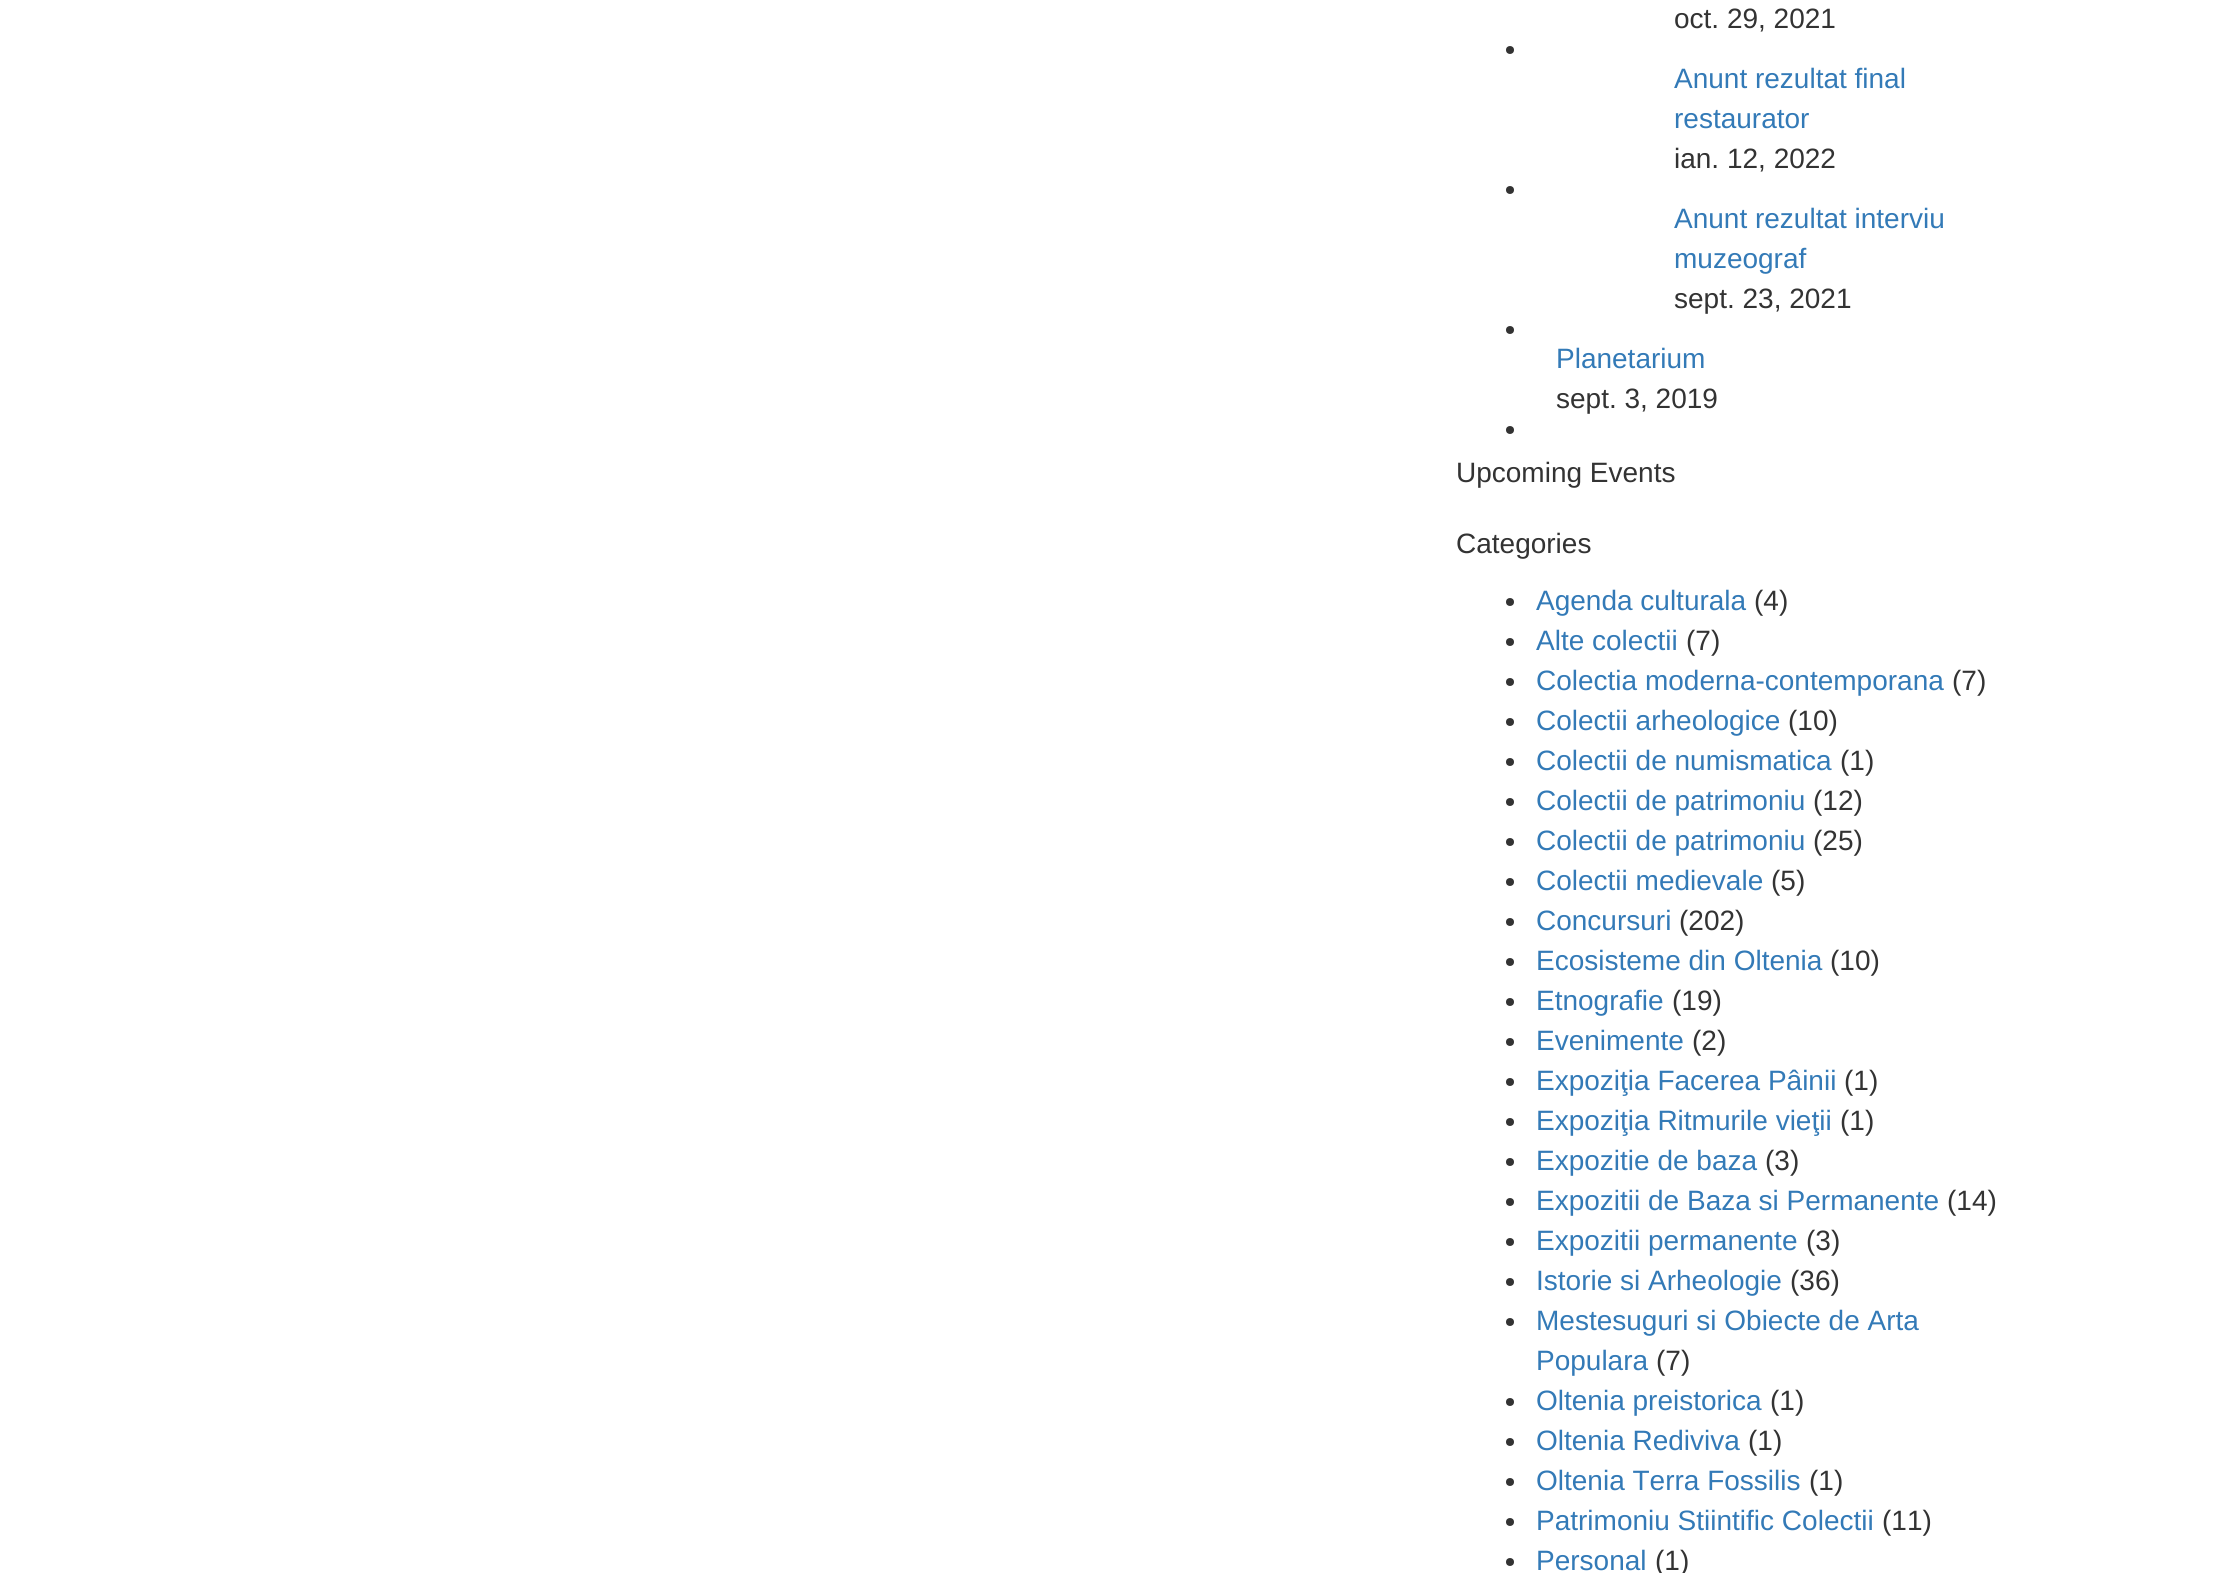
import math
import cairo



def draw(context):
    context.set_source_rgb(1, 1, 1)
    context.paint()
    context.set_source_rgb(51 / 255, 51 / 255, 51 / 255)
    context.arc(1510, 50, 4, 0, 2 * math.pi)
    context.fill()
    context.arc(1510, 190, 4, 0, 2 * math.pi)
    context.fill()
    context.arc(1510, 330, 4, 0, 2 * math.pi)
    context.fill()
    context.arc(1510, 430, 4, 0, 2 * math.pi)
    context.fill()
    context.arc(1510, 602, 4, 0, 2 * math.pi)
    context.fill()
    context.arc(1510, 642, 4, 0, 2 * math.pi)
    context.fill()
    context.arc(1510, 682, 4, 0, 2 * math.pi)
    context.fill()
    context.arc(1510, 722, 4, 0, 2 * math.pi)
    context.fill()
    context.arc(1510, 762, 4, 0, 2 * math.pi)
    context.fill()
    context.arc(1510, 802, 4, 0, 2 * math.pi)
    context.fill()
    context.arc(1510, 842, 4, 0, 2 * math.pi)
    context.fill()
    context.arc(1510, 882, 4, 0, 2 * math.pi)
    context.fill()
    context.arc(1510, 922, 4, 0, 2 * math.pi)
    context.fill()
    context.arc(1510, 962, 4, 0, 2 * math.pi)
    context.fill()
    context.arc(1510, 1002, 4, 0, 2 * math.pi)
    context.fill()
    context.arc(1510, 1042, 4, 0, 2 * math.pi)
    context.fill()
    context.arc(1510, 1082, 4, 0, 2 * math.pi)
    context.fill()
    context.arc(1510, 1122, 4, 0, 2 * math.pi)
    context.fill()
    context.arc(1510, 1162, 4, 0, 2 * math.pi)
    context.fill()
    context.arc(1510, 1202, 4, 0, 2 * math.pi)
    context.fill()
    context.arc(1510, 1242, 4, 0, 2 * math.pi)
    context.fill()
    context.arc(1510, 1282, 4, 0, 2 * math.pi)
    context.fill()
    context.arc(1510, 1322, 4, 0, 2 * math.pi)
    context.fill()
    context.arc(1510, 1402, 4, 0, 2 * math.pi)
    context.fill()
    context.arc(1510, 1442, 4, 0, 2 * math.pi)
    context.fill()
    context.arc(1510, 1482, 4, 0, 2 * math.pi)
    context.fill()
    context.arc(1510, 1522, 4, 0, 2 * math.pi)
    context.fill()
    context.arc(1510, 1562, 4, 0, 2 * math.pi)
    context.fill()
    context.select_font_face("Liberation Sans")
    context.set_font_size(28)
    context.move_to(1674, 28)
    context.show_text("oct. 29, 2021")
    context.set_source_rgb(51 / 255, 122 / 255, 183 / 255)
    context.move_to(1674, 88)
    context.show_text("Anunt rezultat final")
    context.move_to(1674, 128)
    context.show_text("restaurator")
    context.set_source_rgb(51 / 255, 51 / 255, 51 / 255)
    context.move_to(1674, 168)
    context.show_text("ian. 12, 2022")
    context.set_source_rgb(51 / 255, 122 / 255, 183 / 255)
    context.move_to(1674, 228)
    context.show_text("Anunt rezultat interviu")
    context.move_to(1674, 268)
    context.show_text("muzeograf")
    context.set_source_rgb(51 / 255, 51 / 255, 51 / 255)
    context.move_to(1674, 308)
    context.show_text("sept. 23, 2021")
    context.set_source_rgb(51 / 255, 122 / 255, 183 / 255)
    context.move_to(1556, 368)
    context.show_text("Planetarium")
    context.set_source_rgb(51 / 255, 51 / 255, 51 / 255)
    context.move_to(1556, 408)
    context.show_text("sept. 3, 2019")
    context.move_to(1456, 482)
    context.show_text("Upcoming Events")
    context.move_to(1456, 553)
    context.show_text("Categories")
    context.set_source_rgb(51 / 255, 122 / 255, 183 / 255)
    context.move_to(1536, 610)
    context.show_text("Agenda culturala")
    context.set_source_rgb(51 / 255, 51 / 255, 51 / 255)
    context.move_to(1754, 610)
    context.show_text("(4)")
    context.set_source_rgb(51 / 255, 122 / 255, 183 / 255)
    context.move_to(1536, 650)
    context.show_text("Alte colectii")
    context.set_source_rgb(51 / 255, 51 / 255, 51 / 255)
    context.move_to(1686, 650)
    context.show_text("(7)")
    context.set_source_rgb(51 / 255, 122 / 255, 183 / 255)
    context.move_to(1536, 690)
    context.show_text("Colectia moderna-contemporana")
    context.set_source_rgb(51 / 255, 51 / 255, 51 / 255)
    context.move_to(1952, 690)
    context.show_text("(7)")
    context.set_source_rgb(51 / 255, 122 / 255, 183 / 255)
    context.move_to(1536, 730)
    context.show_text("Colectii arheologice")
    context.set_source_rgb(51 / 255, 51 / 255, 51 / 255)
    context.move_to(1788, 730)
    context.show_text("(10)")
    context.set_source_rgb(51 / 255, 122 / 255, 183 / 255)
    context.move_to(1536, 770)
    context.show_text("Colectii de numismatica")
    context.set_source_rgb(51 / 255, 51 / 255, 51 / 255)
    context.move_to(1840, 770)
    context.show_text("(1)")
    context.set_source_rgb(51 / 255, 122 / 255, 183 / 255)
    context.move_to(1536, 810)
    context.show_text("Colectii de patrimoniu")
    context.set_source_rgb(51 / 255, 51 / 255, 51 / 255)
    context.move_to(1813, 810)
    context.show_text("(12)")
    context.set_source_rgb(51 / 255, 122 / 255, 183 / 255)
    context.move_to(1536, 850)
    context.show_text("Colectii de patrimoniu")
    context.set_source_rgb(51 / 255, 51 / 255, 51 / 255)
    context.move_to(1813, 850)
    context.show_text("(25)")
    context.set_source_rgb(51 / 255, 122 / 255, 183 / 255)
    context.move_to(1536, 890)
    context.show_text("Colectii medievale")
    context.set_source_rgb(51 / 255, 51 / 255, 51 / 255)
    context.move_to(1771, 890)
    context.show_text("(5)")
    context.set_source_rgb(51 / 255, 122 / 255, 183 / 255)
    context.move_to(1536, 930)
    context.show_text("Concursuri")
    context.set_source_rgb(51 / 255, 51 / 255, 51 / 255)
    context.move_to(1679, 930)
    context.show_text("(202)")
    context.set_source_rgb(51 / 255, 122 / 255, 183 / 255)
    context.move_to(1536, 970)
    context.show_text("Ecosisteme din Oltenia")
    context.set_source_rgb(51 / 255, 51 / 255, 51 / 255)
    context.move_to(1830, 970)
    context.show_text("(10)")
    context.set_source_rgb(51 / 255, 122 / 255, 183 / 255)
    context.move_to(1536, 1010)
    context.show_text("Etnografie")
    context.set_source_rgb(51 / 255, 51 / 255, 51 / 255)
    context.move_to(1672, 1010)
    context.show_text("(19)")
    context.set_source_rgb(51 / 255, 122 / 255, 183 / 255)
    context.move_to(1536, 1050)
    context.show_text("Evenimente")
    context.set_source_rgb(51 / 255, 51 / 255, 51 / 255)
    context.move_to(1692, 1050)
    context.show_text("(2)")
    context.set_source_rgb(51 / 255, 122 / 255, 183 / 255)
    context.move_to(1536, 1090)
    context.show_text("Expoziţia Facerea Pâinii")
    context.set_source_rgb(51 / 255, 51 / 255, 51 / 255)
    context.move_to(1844, 1090)
    context.show_text("(1)")
    context.set_source_rgb(51 / 255, 122 / 255, 183 / 255)
    context.move_to(1536, 1130)
    context.show_text("Expoziţia Ritmurile vieţii")
    context.set_source_rgb(51 / 255, 51 / 255, 51 / 255)
    context.move_to(1840, 1130)
    context.show_text("(1)")
    context.set_source_rgb(51 / 255, 122 / 255, 183 / 255)
    context.move_to(1536, 1170)
    context.show_text("Expozitie de baza")
    context.set_source_rgb(51 / 255, 51 / 255, 51 / 255)
    context.move_to(1765, 1170)
    context.show_text("(3)")
    context.set_source_rgb(51 / 255, 122 / 255, 183 / 255)
    context.move_to(1536, 1210)
    context.show_text("Expozitii de Baza si Permanente")
    context.set_source_rgb(51 / 255, 51 / 255, 51 / 255)
    context.move_to(1947, 1210)
    context.show_text("(14)")
    context.set_source_rgb(51 / 255, 122 / 255, 183 / 255)
    context.move_to(1536, 1250)
    context.show_text("Expozitii permanente")
    context.set_source_rgb(51 / 255, 51 / 255, 51 / 255)
    context.move_to(1806, 1250)
    context.show_text("(3)")
    context.set_source_rgb(51 / 255, 122 / 255, 183 / 255)
    context.move_to(1536, 1290)
    context.show_text("Istorie si Arheologie")
    context.set_source_rgb(51 / 255, 51 / 255, 51 / 255)
    context.move_to(1790, 1290)
    context.show_text("(36)")
    context.set_source_rgb(51 / 255, 122 / 255, 183 / 255)
    context.move_to(1536, 1330)
    context.show_text("Mestesuguri si Obiecte de Arta")
    context.move_to(1536, 1370)
    context.show_text("Populara")
    context.set_source_rgb(51 / 255, 51 / 255, 51 / 255)
    context.move_to(1656, 1370)
    context.show_text("(7)")
    context.set_source_rgb(51 / 255, 122 / 255, 183 / 255)
    context.move_to(1536, 1410)
    context.show_text("Oltenia preistorica")
    context.set_source_rgb(51 / 255, 51 / 255, 51 / 255)
    context.move_to(1770, 1410)
    context.show_text("(1)")
    context.set_source_rgb(51 / 255, 122 / 255, 183 / 255)
    context.move_to(1536, 1450)
    context.show_text("Oltenia Rediviva")
    context.set_source_rgb(51 / 255, 51 / 255, 51 / 255)
    context.move_to(1748, 1450)
    context.show_text("(1)")
    context.set_source_rgb(51 / 255, 122 / 255, 183 / 255)
    context.move_to(1536, 1490)
    context.show_text("Oltenia Terra Fossilis")
    context.set_source_rgb(51 / 255, 51 / 255, 51 / 255)
    context.move_to(1809, 1490)
    context.show_text("(1)")
    context.set_source_rgb(51 / 255, 122 / 255, 183 / 255)
    context.move_to(1536, 1530)
    context.show_text("Patrimoniu Stiintific Colectii")
    context.set_source_rgb(51 / 255, 51 / 255, 51 / 255)
    context.move_to(1882, 1530)
    context.show_text("(11)")
    context.set_source_rgb(51 / 255, 122 / 255, 183 / 255)
    context.move_to(1536, 1570)
    context.show_text("Personal")
    context.set_source_rgb(51 / 255, 51 / 255, 51 / 255)
    context.move_to(1655, 1570)
    context.show_text("(1)")


surface = cairo.ImageSurface(cairo.Format.RGB24, 2225, 1573)
context = cairo.Context(surface)
options = cairo.FontOptions()
options.set_hint_metrics(cairo.HintMetrics.OFF)
options.set_hint_style(cairo.HintStyle.NONE)
context.set_font_options(options)
context.set_miter_limit(4)
draw(context)
surface.write_to_png("out.png")
